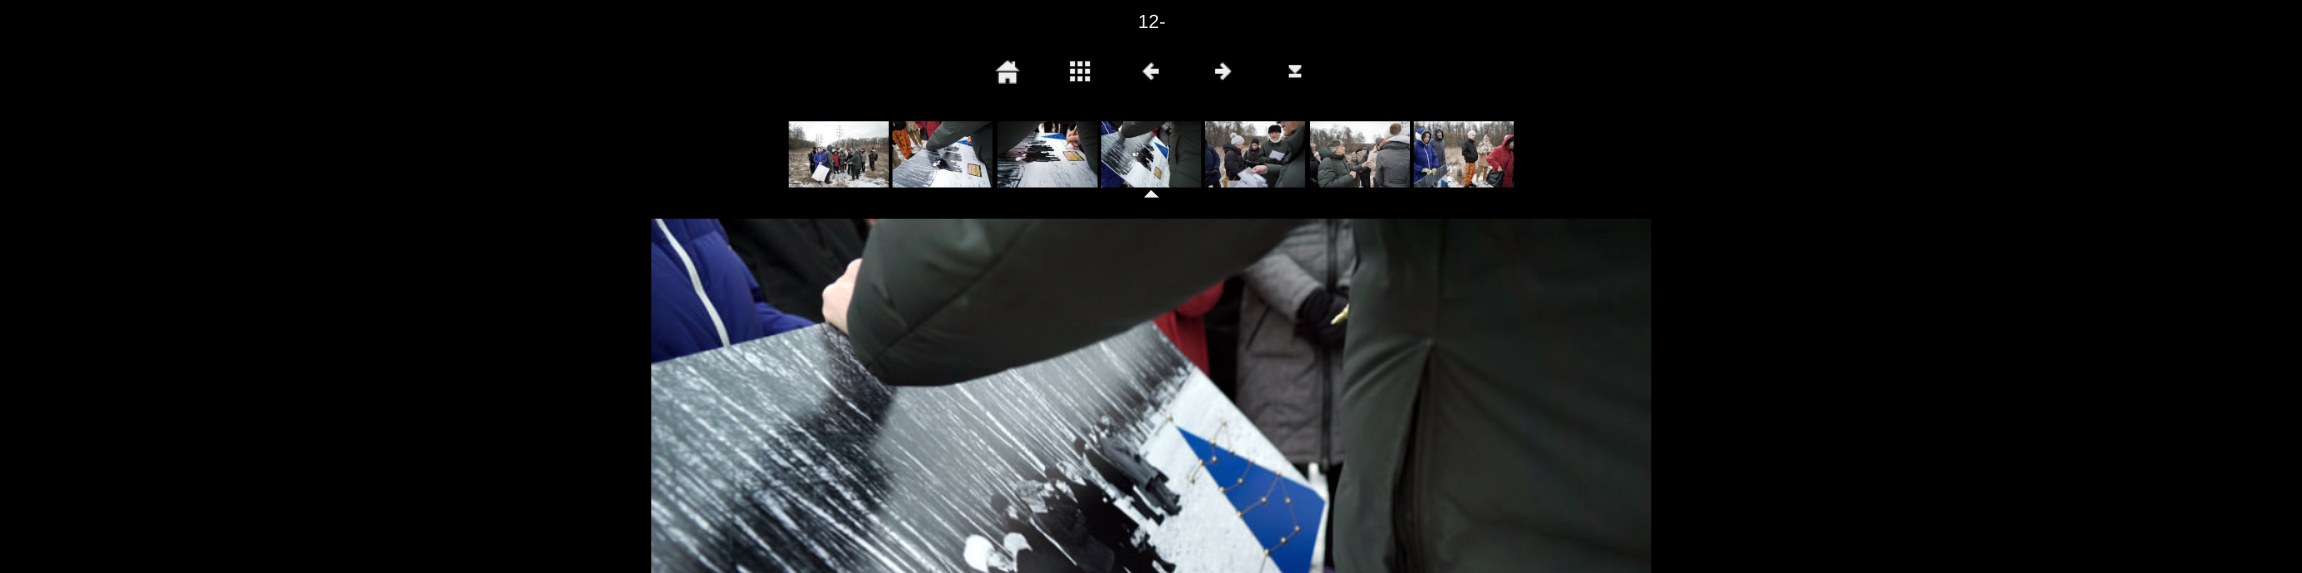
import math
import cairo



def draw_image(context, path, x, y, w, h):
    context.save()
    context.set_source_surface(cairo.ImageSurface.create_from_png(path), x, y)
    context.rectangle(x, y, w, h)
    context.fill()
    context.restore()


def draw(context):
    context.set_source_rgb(0, 0, 0)
    context.paint()
    draw_image(context, "images/1.png", 995, 59, 26, 25)
    draw_image(context, "images/2.png", 1069, 61, 22, 21)
    draw_image(context, "images/3.png", 1142, 62, 17, 19)
    draw_image(context, "images/4.png", 1214, 62, 18, 19)
    draw_image(context, "images/5.png", 1288, 64, 14, 14)
    draw_image(context, "images/6.png", 788, 121, 101, 67)
    draw_image(context, "images/7.png", 892, 121, 101, 67)
    draw_image(context, "images/8.png", 997, 121, 101, 67)
    draw_image(context, "images/9.png", 1101, 121, 101, 67)
    context.set_source_rgb(238 / 255, 238 / 255, 238 / 255)
    context.new_path()
    context.move_to(1159, 197.5)
    context.line_to(1144, 197.5)
    context.line_to(1151, 190)
    context.close_path()
    context.fill()
    draw_image(context, "images/10.png", 1205, 121, 100, 67)
    draw_image(context, "images/11.png", 1310, 121, 100, 67)
    draw_image(context, "images/12.png", 1413, 121, 101, 67)
    draw_image(context, "images/13.png", 651, 218, 1001, 355)
    context.select_font_face("Liberation Sans")
    context.set_font_size(19)
    context.move_to(1138, 28)
    context.show_text("12-")


surface = cairo.ImageSurface(cairo.Format.RGB24, 2302, 573)
context = cairo.Context(surface)
options = cairo.FontOptions()
options.set_hint_metrics(cairo.HintMetrics.OFF)
options.set_hint_style(cairo.HintStyle.NONE)
context.set_font_options(options)
context.set_miter_limit(4)
draw(context)
surface.write_to_png("out.png")
